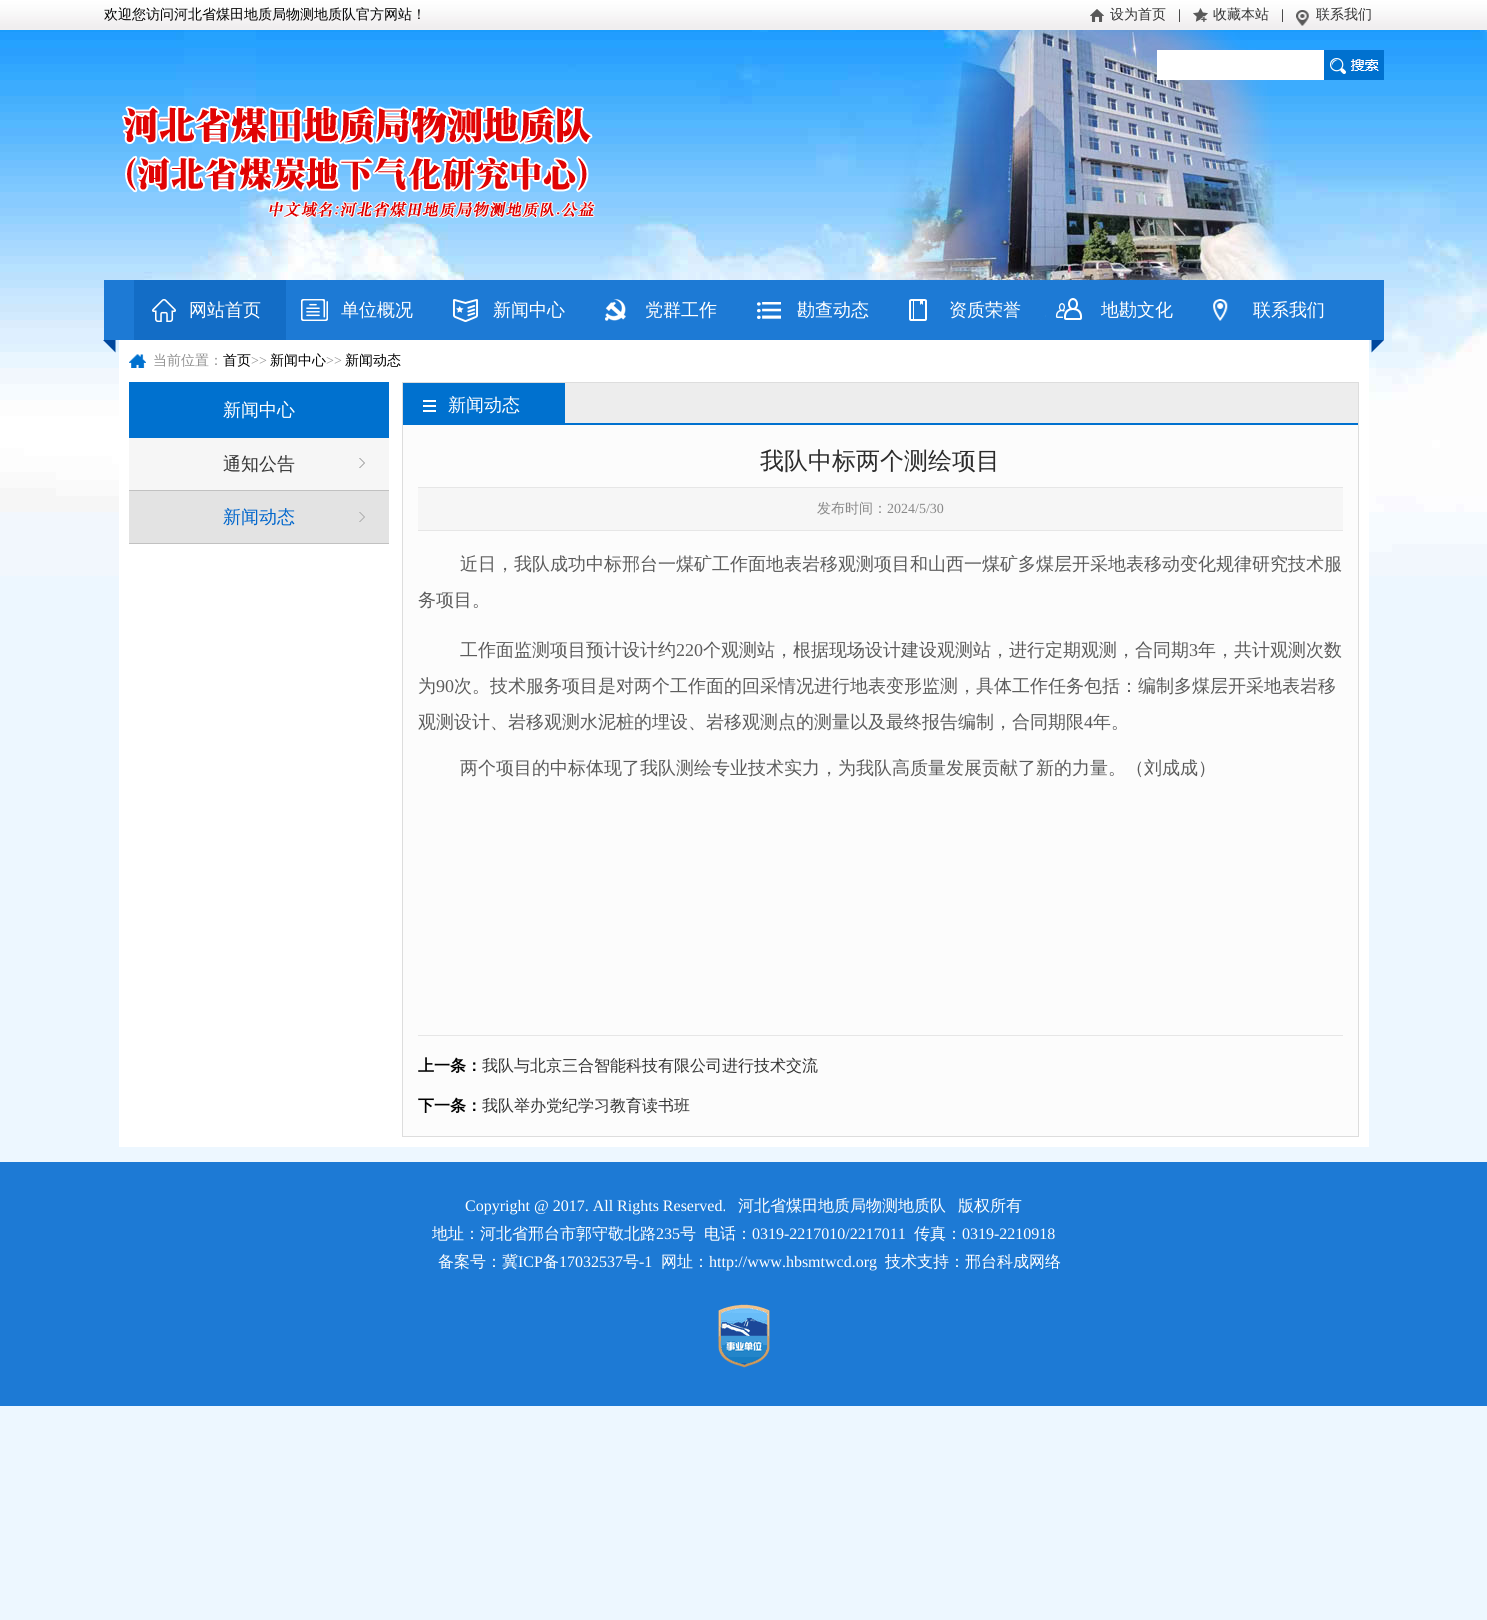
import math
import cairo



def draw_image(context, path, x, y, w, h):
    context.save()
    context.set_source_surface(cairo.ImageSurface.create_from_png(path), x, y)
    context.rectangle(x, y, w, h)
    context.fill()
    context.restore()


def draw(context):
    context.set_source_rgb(237 / 255, 247 / 255, 1)
    context.paint()
    draw_image(context, "images/1.png", 0, 0, 1487, 30)
    draw_image(context, "images/2.png", 1090, 9, 14, 13)
    draw_image(context, "images/3.png", 1193, 8, 15, 14)
    draw_image(context, "images/4.png", 1296, 10, 13, 16)
    draw_image(context, "images/7.png", 0, 30, 1487, 546)
    context.set_source_rgb(1, 1, 1)
    context.rectangle(1157, 50, 167, 30)
    context.fill()
    draw_image(context, "images/5.png", 1324, 50, 60, 30)
    draw_image(context, "images/6.png", 122, 105, 474, 113)
    context.set_source_rgb(29 / 255, 122 / 255, 213 / 255)
    context.rectangle(104, 280, 1280, 60)
    context.fill()
    context.set_source_rgb(19 / 255, 109 / 255, 198 / 255)
    context.rectangle(134, 280, 152, 60)
    context.fill()
    draw_image(context, "images/8.png", 152, 299, 24, 23)
    draw_image(context, "images/9.png", 301, 299, 27, 22)
    draw_image(context, "images/10.png", 453, 299, 25, 23)
    draw_image(context, "images/11.png", 605, 299, 21, 22)
    draw_image(context, "images/12.png", 757, 302, 24, 17)
    draw_image(context, "images/13.png", 909, 299, 137, 22)
    draw_image(context, "images/14.png", 1055, 298, 28, 22)
    draw_image(context, "images/15.png", 1213, 299, 15, 22)
    context.set_source_rgb(0, 71 / 255, 157 / 255)
    context.new_path()
    context.move_to(115.5, 352.5)
    context.line_to(103, 340)
    context.line_to(115.5, 340)
    context.close_path()
    context.fill()
    context.new_path()
    context.move_to(1384, 340)
    context.line_to(1371.5, 352.5)
    context.line_to(1371.5, 340)
    context.close_path()
    context.fill()
    context.set_source_rgb(1, 1, 1)
    context.rectangle(119, 340, 1250, 807)
    context.fill()
    draw_image(context, "images/16.png", 129, 354, 17, 14)
    context.set_source_rgb(0, 113 / 255, 207 / 255)
    context.rectangle(129, 382, 260, 56)
    context.fill()
    context.set_source_rgb(246 / 255, 246 / 255, 246 / 255)
    context.rectangle(129, 438, 260, 52)
    context.fill()
    draw_image(context, "images/17.png", 359, 458, 6, 10)
    context.set_source_rgb(193 / 255, 193 / 255, 193 / 255)
    context.rectangle(129, 490, 260, 1)
    context.fill()
    context.set_source_rgb(227 / 255, 227 / 255, 227 / 255)
    context.rectangle(129, 491, 260, 52)
    context.fill()
    draw_image(context, "images/18.png", 359, 512, 6, 10)
    context.set_source_rgb(193 / 255, 193 / 255, 193 / 255)
    context.rectangle(129, 543, 260, 1)
    context.fill()
    context.set_source_rgb(252 / 255, 252 / 255, 252 / 255)
    context.rectangle(403, 425, 955, 711)
    context.fill()
    context.rectangle(402.5, 382.5, 956, 754)
    context.set_source_rgb(221 / 255, 221 / 255, 221 / 255)
    context.set_line_width(1)
    context.stroke()
    context.set_source_rgb(237 / 255, 237 / 255, 237 / 255)
    context.rectangle(565, 383, 793, 40)
    context.fill()
    context.set_source_rgb(0, 113 / 255, 207 / 255)
    context.rectangle(403, 423, 955, 2)
    context.fill()
    context.rectangle(403, 383, 162, 40)
    context.fill()
    draw_image(context, "images/19.png", 423, 400, 13, 12)
    context.set_source_rgb(230 / 255, 230 / 255, 230 / 255)
    context.rectangle(418, 1035, 925, 1)
    context.fill()
    context.set_source_rgb(246 / 255, 246 / 255, 246 / 255)
    context.rectangle(418, 488, 925, 42)
    context.fill()
    context.set_source_rgb(230 / 255, 230 / 255, 230 / 255)
    context.rectangle(418, 487, 925, 1)
    context.fill()
    context.rectangle(418, 530, 925, 1)
    context.fill()
    context.set_source_rgb(29 / 255, 122 / 255, 213 / 255)
    context.rectangle(0, 1162, 1487, 244)
    context.fill()
    draw_image(context, "images/20.png", 718, 1304, 52, 64)
    context.select_font_face("WenQuanYi Zen Hei Medium")
    context.set_font_size(14)
    context.set_source_rgb(0, 0, 0)
    context.move_to(104, 19)
    context.show_text("欢迎您访问河北省煤田地质局物测地质队官方网站！")
    context.set_source_rgb(51 / 255, 51 / 255, 51 / 255)
    context.move_to(1110, 19)
    context.show_text("设为首页")
    context.select_font_face("Liberation Serif")
    context.set_source_rgb(0, 0, 0)
    context.move_to(1178, 19)
    context.show_text("|")
    context.select_font_face("WenQuanYi Zen Hei Medium")
    context.set_source_rgb(51 / 255, 51 / 255, 51 / 255)
    context.move_to(1213, 19)
    context.show_text("收藏本站")
    context.select_font_face("Liberation Serif")
    context.set_source_rgb(0, 0, 0)
    context.move_to(1281, 19)
    context.show_text("|")
    context.select_font_face("WenQuanYi Zen Hei Medium")
    context.set_source_rgb(51 / 255, 51 / 255, 51 / 255)
    context.move_to(1316, 19)
    context.show_text("联系我们")
    context.set_font_size(18)
    context.set_source_rgb(1, 1, 1)
    context.move_to(189, 316)
    context.show_text("网站首页")
    context.move_to(341, 316)
    context.show_text("单位概况")
    context.move_to(493, 316)
    context.show_text("新闻中心")
    context.move_to(645, 316)
    context.show_text("党群工作")
    context.move_to(797, 316)
    context.show_text("勘查动态")
    context.move_to(949, 316)
    context.show_text("资质荣誉")
    context.move_to(1101, 316)
    context.show_text("地勘文化")
    context.move_to(1253, 316)
    context.show_text("联系我们")
    context.set_font_size(14)
    context.set_source_rgb(144 / 255, 144 / 255, 144 / 255)
    context.move_to(153, 365)
    context.show_text("当前位置：")
    context.set_source_rgb(0, 0, 0)
    context.move_to(223, 365)
    context.show_text("首页")
    context.select_font_face("Liberation Serif")
    context.set_source_rgb(144 / 255, 144 / 255, 144 / 255)
    context.move_to(251, 365)
    context.show_text(">>")
    context.select_font_face("WenQuanYi Zen Hei Medium")
    context.set_source_rgb(0, 0, 0)
    context.move_to(270, 365)
    context.show_text("新闻中心")
    context.select_font_face("Liberation Serif")
    context.set_source_rgb(144 / 255, 144 / 255, 144 / 255)
    context.move_to(326, 365)
    context.show_text(">>")
    context.select_font_face("WenQuanYi Zen Hei Medium")
    context.set_source_rgb(0, 0, 0)
    context.move_to(345, 365)
    context.show_text("新闻动态")
    context.set_font_size(18)
    context.set_source_rgb(1, 1, 1)
    context.move_to(223, 416)
    context.show_text("新闻中心")
    context.set_source_rgb(51 / 255, 51 / 255, 51 / 255)
    context.move_to(223, 470)
    context.show_text("通知公告")
    context.set_source_rgb(0, 102 / 255, 204 / 255)
    context.move_to(223, 523)
    context.show_text("新闻动态")
    context.set_source_rgb(1, 1, 1)
    context.move_to(448, 411)
    context.show_text("新闻动态")
    context.set_font_size(24)
    context.set_source_rgb(43 / 255, 43 / 255, 43 / 255)
    context.move_to(760, 469)
    context.show_text("我队中标两个测绘项目")
    context.set_font_size(14)
    context.set_source_rgb(136 / 255, 136 / 255, 136 / 255)
    context.move_to(817, 513)
    context.show_text("发布时间：")
    context.select_font_face("Liberation Serif")
    context.move_to(887, 513)
    context.show_text("2024/5/30")
    context.select_font_face("WenQuanYi Zen Hei Medium")
    context.set_font_size(18)
    context.set_source_rgb(91 / 255, 91 / 255, 91 / 255)
    context.move_to(460, 570)
    context.show_text("近日，我队成功中标邢台一煤矿工作面地表岩移观测项目和山西一煤矿多煤层开采地表移动变化规律研究技术服")
    context.move_to(418, 606)
    context.show_text("务项目。")
    context.move_to(460, 656)
    context.show_text("工作面监测项目预计设计约")
    context.select_font_face("Liberation Serif")
    context.move_to(676, 656)
    context.show_text("220")
    context.select_font_face("WenQuanYi Zen Hei Medium")
    context.move_to(703, 656)
    context.show_text("个观测站，根据现场设计建设观测站，进行定期观测，合同期")
    context.select_font_face("Liberation Serif")
    context.move_to(1189, 656)
    context.show_text("3")
    context.select_font_face("WenQuanYi Zen Hei Medium")
    context.move_to(1198, 656)
    context.show_text("年，共计观测次数")
    context.move_to(418, 692)
    context.show_text("为")
    context.select_font_face("Liberation Serif")
    context.move_to(436, 692)
    context.show_text("90")
    context.select_font_face("WenQuanYi Zen Hei Medium")
    context.move_to(454, 692)
    context.show_text("次。技术服务项目是对两个工作面的回采情况进行地表变形监测，具体工作任务包括：编制多煤层开采地表岩移")
    context.move_to(418, 728)
    context.show_text("观测设计、岩移观测水泥桩的埋设、岩移观测点的测量以及最终报告编制，合同期限")
    context.select_font_face("Liberation Serif")
    context.move_to(1084, 728)
    context.show_text("4")
    context.select_font_face("WenQuanYi Zen Hei Medium")
    context.move_to(1093, 728)
    context.show_text("年。")
    context.move_to(460, 774)
    context.show_text("两个项目的中标体现了我队测绘专业技术实力，为我队高质量发展贡献了新的力量。（刘成成）")
    context.select_font_face("WenQuanYi Zen Hei", cairo.FontSlant.NORMAL, cairo.FontWeight.BOLD)
    context.set_font_size(16)
    context.set_source_rgb(0, 0, 0)
    context.move_to(418, 1071)
    context.show_text("上一条：")
    context.select_font_face("WenQuanYi Zen Hei Medium")
    context.set_source_rgb(51 / 255, 51 / 255, 51 / 255)
    context.move_to(482, 1071)
    context.show_text("我队与北京三合智能科技有限公司进行技术交流")
    context.select_font_face("WenQuanYi Zen Hei", cairo.FontSlant.NORMAL, cairo.FontWeight.BOLD)
    context.set_source_rgb(0, 0, 0)
    context.move_to(418, 1111)
    context.show_text("下一条：")
    context.select_font_face("WenQuanYi Zen Hei Medium")
    context.set_source_rgb(51 / 255, 51 / 255, 51 / 255)
    context.move_to(482, 1111)
    context.show_text("我队举办党纪学习教育读书班")
    context.select_font_face("Liberation Serif")
    context.set_source_rgb(1, 1, 1)
    context.move_to(465, 1211)
    context.show_text("Copyright @ 2017. All Rights Reserved.")
    context.select_font_face("WenQuanYi Zen Hei Medium")
    context.move_to(738, 1211)
    context.show_text("河北省煤田地质局物测地质队")
    context.move_to(958, 1211)
    context.show_text("版权所有")
    context.move_to(432, 1239)
    context.show_text("地址：河北省邢台市郭守敬北路")
    context.select_font_face("Liberation Serif")
    context.move_to(656, 1239)
    context.show_text("235")
    context.select_font_face("WenQuanYi Zen Hei Medium")
    context.move_to(680, 1239)
    context.show_text("号")
    context.move_to(704, 1239)
    context.show_text("电话：")
    context.select_font_face("Liberation Serif")
    context.move_to(752, 1239)
    context.show_text("0319-2217010/2217011")
    context.select_font_face("WenQuanYi Zen Hei Medium")
    context.move_to(914, 1239)
    context.show_text("传真：")
    context.select_font_face("Liberation Serif")
    context.move_to(962, 1239)
    context.show_text("0319-2210918")
    context.select_font_face("WenQuanYi Zen Hei Medium")
    context.move_to(438, 1267)
    context.show_text("备案号：冀")
    context.select_font_face("Liberation Serif")
    context.move_to(518, 1267)
    context.show_text("ICP")
    context.select_font_face("WenQuanYi Zen Hei Medium")
    context.move_to(543, 1267)
    context.show_text("备")
    context.select_font_face("Liberation Serif")
    context.move_to(559, 1267)
    context.show_text("17032537")
    context.select_font_face("WenQuanYi Zen Hei Medium")
    context.move_to(623, 1267)
    context.show_text("号")
    context.select_font_face("Liberation Serif")
    context.move_to(639, 1267)
    context.show_text("-1")
    context.select_font_face("WenQuanYi Zen Hei Medium")
    context.move_to(661, 1267)
    context.show_text("网址：")
    context.select_font_face("Liberation Serif")
    context.move_to(709, 1267)
    context.show_text("http://www.hbsmtwcd.org")
    context.select_font_face("WenQuanYi Zen Hei Medium")
    context.move_to(885, 1267)
    context.show_text("技术支持：邢台科成网络")


surface = cairo.ImageSurface(cairo.Format.RGB24, 1487, 1620)
context = cairo.Context(surface)
options = cairo.FontOptions()
options.set_hint_metrics(cairo.HintMetrics.OFF)
options.set_hint_style(cairo.HintStyle.NONE)
context.set_font_options(options)
context.set_miter_limit(4)
draw(context)
surface.write_to_png("out.png")
